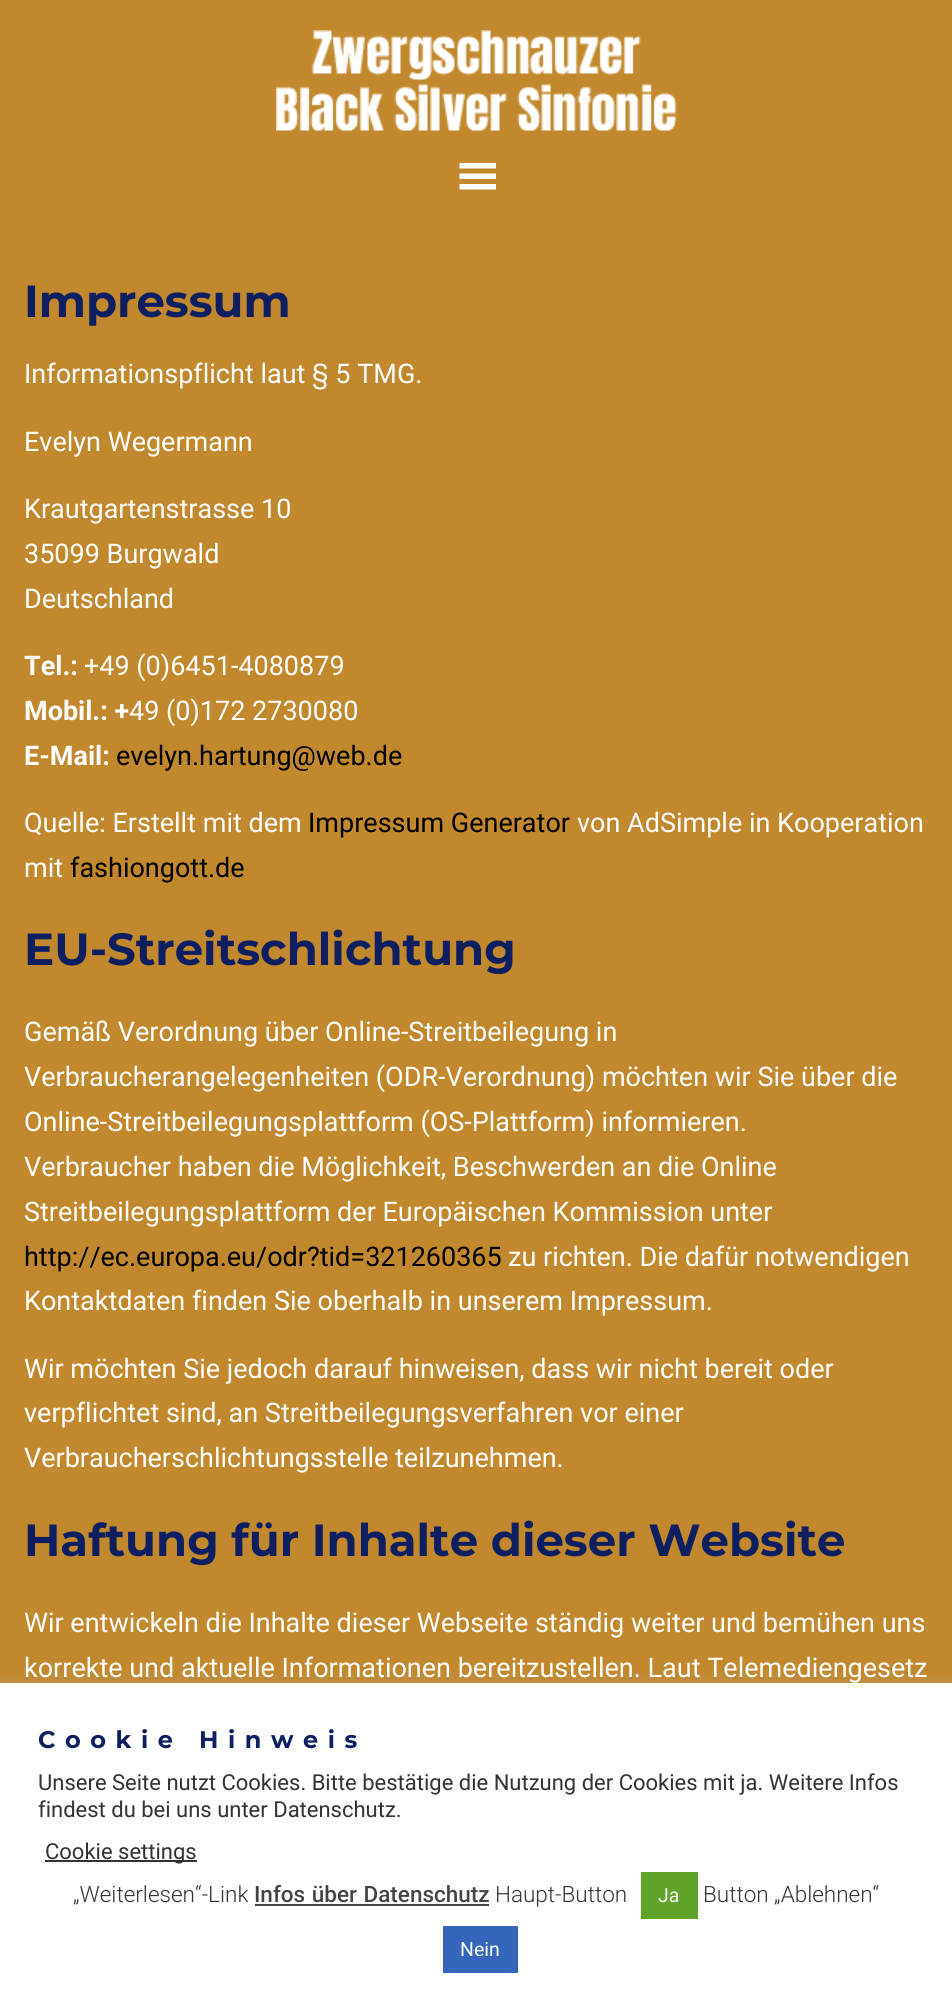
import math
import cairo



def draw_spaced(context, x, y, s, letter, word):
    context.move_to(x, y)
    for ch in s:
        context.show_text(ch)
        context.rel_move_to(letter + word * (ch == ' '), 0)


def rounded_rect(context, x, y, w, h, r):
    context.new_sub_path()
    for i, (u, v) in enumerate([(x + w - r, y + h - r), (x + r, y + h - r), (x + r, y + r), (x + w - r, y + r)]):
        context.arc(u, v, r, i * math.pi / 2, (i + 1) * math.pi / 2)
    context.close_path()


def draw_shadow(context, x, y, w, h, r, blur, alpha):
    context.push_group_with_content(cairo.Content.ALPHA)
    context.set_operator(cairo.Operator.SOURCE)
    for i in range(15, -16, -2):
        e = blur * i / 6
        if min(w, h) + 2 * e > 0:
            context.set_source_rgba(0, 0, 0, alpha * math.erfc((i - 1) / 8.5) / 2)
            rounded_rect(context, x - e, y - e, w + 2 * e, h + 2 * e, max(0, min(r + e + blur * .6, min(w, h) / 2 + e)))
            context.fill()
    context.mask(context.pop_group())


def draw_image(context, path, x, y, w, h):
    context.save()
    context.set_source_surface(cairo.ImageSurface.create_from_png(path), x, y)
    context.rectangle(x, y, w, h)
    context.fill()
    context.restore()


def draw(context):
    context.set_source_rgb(194 / 255, 136 / 255, 45 / 255)
    context.paint()
    draw_image(context, "images/1.png", 276, 30, 401, 101)
    context.set_source_rgb(1, 1, 1)
    context.new_path()
    context.move_to(459.5, 189.5)
    context.line_to(496, 189.5)
    context.line_to(496, 184)
    context.line_to(459.5, 184)
    context.close_path()
    context.move_to(459.5, 163)
    context.line_to(459.5, 168.5)
    context.line_to(496, 168.5)
    context.line_to(496, 163)
    context.close_path()
    context.move_to(459.5, 179)
    context.line_to(496, 179)
    context.line_to(496, 173.5)
    context.line_to(459.5, 173.5)
    context.close_path()
    context.fill()
    context.set_source_rgb(172 / 255, 171 / 255, 171 / 255)
    draw_shadow(context, 0, 1682, 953, 327, 0, 7.5, 0.3)
    context.set_source_rgb(1, 1, 1)
    context.rectangle(0, 1683, 952, 327)
    context.fill()
    context.set_source_rgb(51 / 255, 51 / 255, 51 / 255)
    context.rectangle(45, 1860, 152, 2)
    context.fill()
    context.set_source_rgb(68 / 255, 68 / 255, 68 / 255)
    context.rectangle(255, 1904, 234, 2)
    context.fill()
    context.set_source_rgb(97 / 255, 162 / 255, 41 / 255)
    context.rectangle(641, 1872, 57, 47)
    context.fill()
    context.set_source_rgb(53 / 255, 102 / 255, 187 / 255)
    context.rectangle(443, 1926, 75, 47)
    context.fill()
    context.select_font_face("Montserrat", cairo.FontSlant.NORMAL, cairo.FontWeight.BOLD)
    context.set_font_size(45)
    context.set_source_rgb(13 / 255, 31 / 255, 97 / 255)
    context.move_to(24, 317)
    context.show_text("Impressum")
    context.select_font_face("Roboto")
    context.set_font_size(27)
    context.set_source_rgb(1, 1, 1)
    context.move_to(24, 383)
    context.show_text("Informationspflicht laut § 5 TMG.")
    context.move_to(24, 451)
    context.show_text("Evelyn Wegermann")
    context.move_to(24, 518)
    context.show_text("Krautgartenstrasse 10")
    context.move_to(24, 563)
    context.show_text("35099 Burgwald")
    context.move_to(24, 608)
    context.show_text("Deutschland")
    context.select_font_face("Roboto", cairo.FontSlant.NORMAL, cairo.FontWeight.BOLD)
    context.move_to(24, 675)
    context.show_text("Tel.:")
    context.select_font_face("Roboto")
    context.move_to(84, 675)
    context.show_text("+49 (0)6451-4080879")
    context.select_font_face("Roboto", cairo.FontSlant.NORMAL, cairo.FontWeight.BOLD)
    context.move_to(24, 720)
    context.show_text("Mobil.: +")
    context.select_font_face("Roboto")
    context.move_to(129, 720)
    context.show_text("49 (0)172 2730080")
    context.select_font_face("Roboto", cairo.FontSlant.NORMAL, cairo.FontWeight.BOLD)
    context.move_to(24, 765)
    context.show_text("E-Mail:")
    context.select_font_face("Roboto")
    context.set_source_rgb(0, 0, 0)
    context.move_to(116, 765)
    context.show_text("evelyn.hartung@web.de")
    context.set_source_rgb(1, 1, 1)
    context.move_to(24, 832)
    context.show_text("Quelle: Erstellt mit dem")
    context.set_source_rgb(0, 0, 0)
    context.move_to(308, 832)
    context.show_text("Impressum Generator")
    context.set_source_rgb(1, 1, 1)
    context.move_to(577, 832)
    context.show_text("von AdSimple in Kooperation")
    context.move_to(24, 877)
    context.show_text("mit")
    context.set_source_rgb(0, 0, 0)
    context.move_to(70, 877)
    context.show_text("fashiongott.de")
    context.select_font_face("Montserrat", cairo.FontSlant.NORMAL, cairo.FontWeight.BOLD)
    context.set_font_size(45)
    context.set_source_rgb(13 / 255, 31 / 255, 97 / 255)
    context.move_to(24, 965)
    context.show_text("EU-Streitschlichtung")
    context.select_font_face("Roboto")
    context.set_font_size(27)
    context.set_source_rgb(1, 1, 1)
    context.move_to(24, 1041)
    context.show_text("Gemäß Verordnung über Online-Streitbeilegung in")
    context.move_to(24, 1086)
    context.show_text("Verbraucherangelegenheiten (ODR-Verordnung) möchten wir Sie über die")
    context.move_to(24, 1131)
    context.show_text("Online-Streitbeilegungsplattform (OS-Plattform) informieren.")
    context.move_to(24, 1176)
    context.show_text("Verbraucher haben die Möglichkeit, Beschwerden an die Online")
    context.move_to(24, 1221)
    context.show_text("Streitbeilegungsplattform der Europäischen Kommission unter")
    context.set_source_rgb(0, 0, 0)
    context.move_to(24, 1266)
    context.show_text("http://ec.europa.eu/odr?tid=321260365")
    context.set_source_rgb(1, 1, 1)
    context.move_to(508, 1266)
    context.show_text("zu richten. Die dafür notwendigen")
    context.move_to(24, 1310)
    context.show_text("Kontaktdaten finden Sie oberhalb in unserem Impressum.")
    context.move_to(24, 1378)
    context.show_text("Wir möchten Sie jedoch darauf hinweisen, dass wir nicht bereit oder")
    context.move_to(24, 1422)
    context.show_text("verpflichtet sind, an Streitbeilegungsverfahren vor einer")
    context.move_to(24, 1467)
    context.show_text("Verbraucherschlichtungsstelle teilzunehmen.")
    context.select_font_face("Montserrat", cairo.FontSlant.NORMAL, cairo.FontWeight.BOLD)
    context.set_font_size(45)
    context.set_source_rgb(13 / 255, 31 / 255, 97 / 255)
    context.move_to(24, 1556)
    context.show_text("Haftung für Inhalte dieser Website")
    context.select_font_face("Roboto")
    context.set_font_size(27)
    context.set_source_rgb(1, 1, 1)
    context.move_to(24, 1632)
    context.show_text("Wir entwickeln die Inhalte dieser Webseite ständig weiter und bemühen uns")
    context.move_to(24, 1677)
    context.show_text("korrekte und aktuelle Informationen bereitzustellen. Laut Telemediengesetz")
    context.select_font_face("Montserrat", cairo.FontSlant.NORMAL, cairo.FontWeight.BOLD)
    context.set_font_size(24)
    context.set_source_rgb(13 / 255, 31 / 255, 97 / 255)
    draw_spaced(context, 38, 1748, "Cookie Hinweis", 9.6, 0)
    context.select_font_face("Roboto")
    context.set_font_size(22)
    context.set_source_rgb(51 / 255, 51 / 255, 51 / 255)
    context.move_to(38, 1790)
    context.show_text("Unsere Seite nutzt Cookies. Bitte bestätige die Nutzung der Cookies mit ja. Weitere Infos")
    context.move_to(38, 1817)
    context.show_text("findest du bei uns unter Datenschutz.")
    context.move_to(45, 1859)
    context.show_text("Cookie settings")
    context.select_font_face("Roboto Light")
    context.set_font_size(22.5)
    context.move_to(73, 1902)
    context.show_text("„Weiterlesen“-Link")
    context.select_font_face("Roboto Medium")
    context.set_source_rgb(68 / 255, 68 / 255, 68 / 255)
    draw_spaced(context, 254, 1902, "Infos über Datenschutz", 0, 1)
    context.select_font_face("Roboto Light")
    context.set_source_rgb(51 / 255, 51 / 255, 51 / 255)
    context.move_to(495, 1902)
    context.show_text("Haupt-Button")
    context.select_font_face("Roboto")
    context.set_font_size(19.5)
    context.set_source_rgb(1, 1, 1)
    context.move_to(658, 1902)
    context.show_text("Ja")
    context.select_font_face("Roboto Light")
    context.set_font_size(22.5)
    context.set_source_rgb(51 / 255, 51 / 255, 51 / 255)
    context.move_to(703, 1902)
    context.show_text("Button „Ablehnen“")
    context.select_font_face("Roboto")
    context.set_font_size(19.5)
    context.set_source_rgb(1, 1, 1)
    context.move_to(460, 1956)
    context.show_text("Nein")


surface = cairo.ImageSurface(cairo.Format.RGB24, 952, 2010)
context = cairo.Context(surface)
options = cairo.FontOptions()
options.set_hint_metrics(cairo.HintMetrics.OFF)
options.set_hint_style(cairo.HintStyle.NONE)
context.set_font_options(options)
context.set_miter_limit(4)
draw(context)
surface.write_to_png("out.png")
